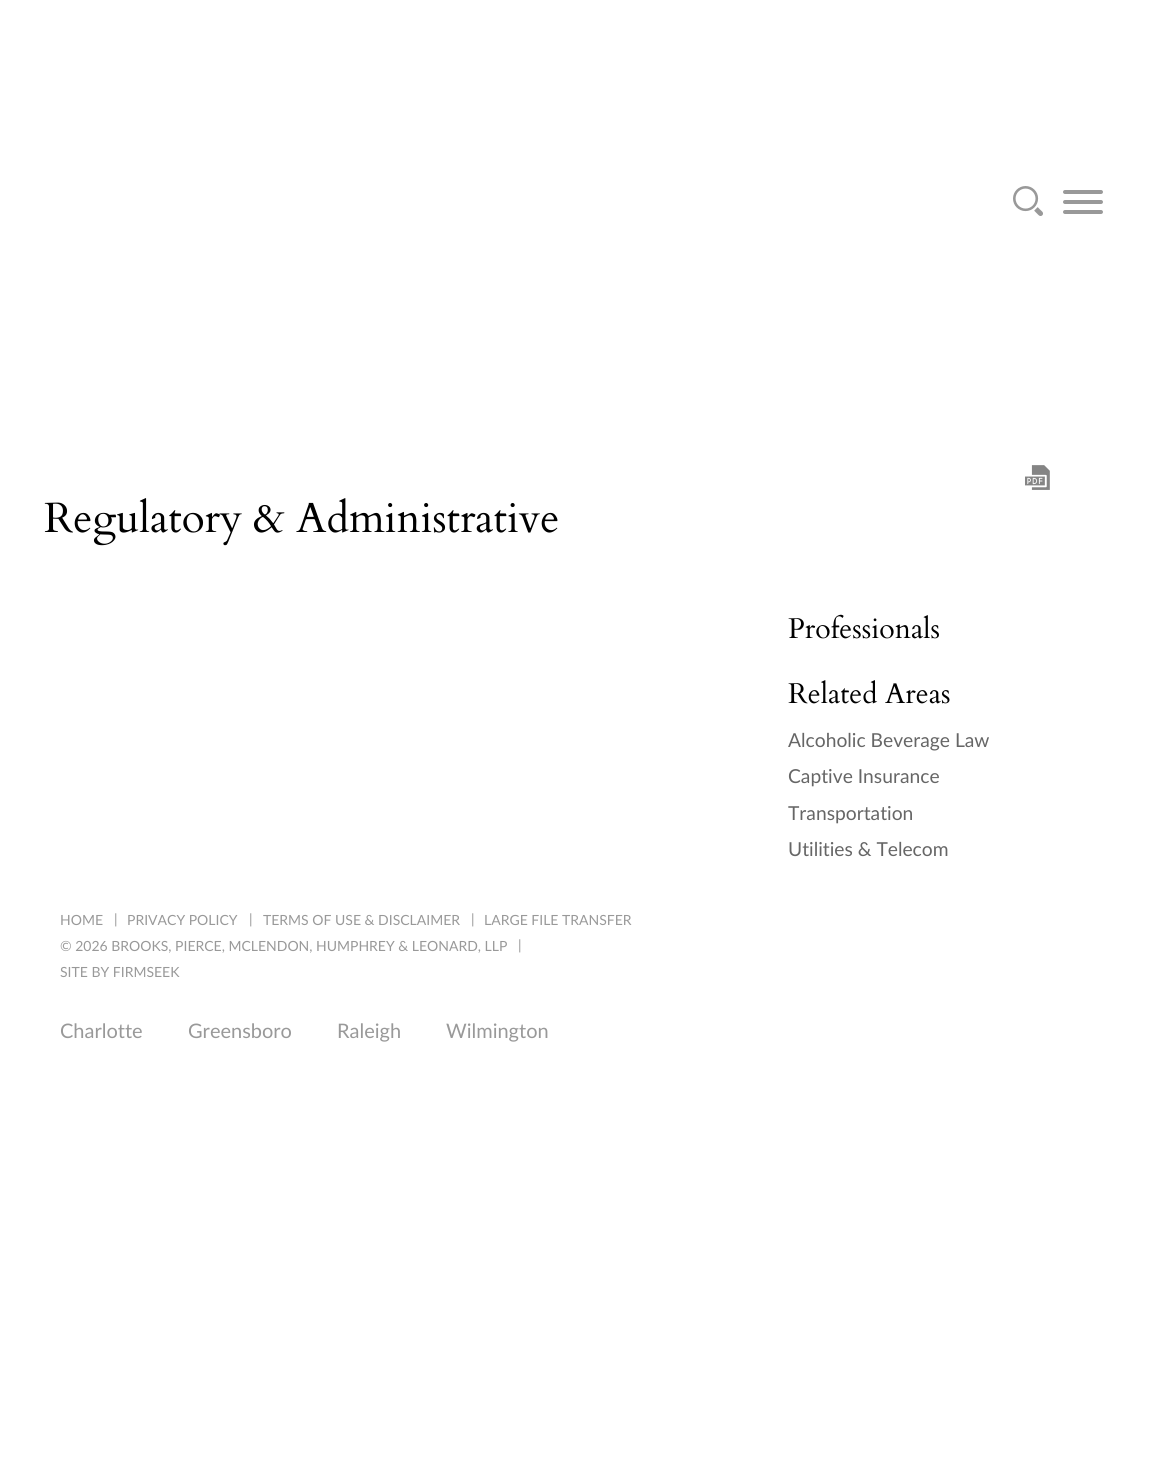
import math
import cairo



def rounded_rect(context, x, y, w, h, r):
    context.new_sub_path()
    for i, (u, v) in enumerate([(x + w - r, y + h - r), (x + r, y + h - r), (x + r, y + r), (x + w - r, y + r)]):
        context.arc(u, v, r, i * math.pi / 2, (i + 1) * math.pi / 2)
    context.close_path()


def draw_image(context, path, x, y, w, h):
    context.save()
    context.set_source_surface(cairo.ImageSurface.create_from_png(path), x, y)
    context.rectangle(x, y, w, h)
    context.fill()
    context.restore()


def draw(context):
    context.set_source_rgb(1, 1, 1)
    context.paint()
    draw_image(context, "images/1.png", 1013, 186, 30, 30)
    context.set_source_rgb(153 / 255, 153 / 255, 153 / 255)
    rounded_rect(context, 1063, 190, 40, 4, 2)
    context.fill()
    rounded_rect(context, 1063, 200, 40, 4, 2)
    context.fill()
    rounded_rect(context, 1063, 210, 40, 4, 2)
    context.fill()
    draw_image(context, "images/2.png", 1025, 465, 25, 25)
    context.select_font_face("Cardo")
    context.set_font_size(42.25)
    context.set_source_rgb(0, 0, 0)
    context.move_to(44, 532)
    context.show_text("Regulatory & Administrative")
    context.set_font_size(28.5)
    context.move_to(788, 638)
    context.show_text("Professionals")
    context.move_to(788, 703)
    context.show_text("Related Areas")
    context.select_font_face("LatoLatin")
    context.set_font_size(19.25)
    context.set_source_rgb(102 / 255, 102 / 255, 102 / 255)
    context.move_to(788, 747)
    context.show_text("Alcoholic Beverage Law")
    context.move_to(788, 783)
    context.show_text("Captive Insurance")
    context.move_to(788, 820)
    context.show_text("Transportation")
    context.move_to(788, 856)
    context.show_text("Utilities & Telecom")
    context.set_font_size(14)
    context.set_source_rgb(153 / 255, 153 / 255, 153 / 255)
    context.move_to(60, 925)
    context.show_text("HOME")
    context.move_to(114, 924)
    context.show_text("|")
    context.move_to(127, 925)
    context.show_text("PRIVACY POLICY")
    context.move_to(249, 924)
    context.show_text("|")
    context.move_to(263, 925)
    context.show_text("TERMS OF USE & DISCLAIMER")
    context.move_to(471, 924)
    context.show_text("|")
    context.move_to(484, 925)
    context.show_text("LARGE FILE TRANSFER")
    context.move_to(60, 951)
    context.show_text("© 2026 BROOKS, PIERCE, MCLENDON, HUMPHREY & LEONARD, LLP")
    context.move_to(518, 950)
    context.show_text("|")
    context.move_to(60, 977)
    context.show_text("SITE BY FIRMSEEK")
    context.set_font_size(20)
    context.move_to(60, 1038)
    context.show_text("Charlotte")
    context.move_to(188, 1038)
    context.show_text("Greensboro")
    context.move_to(337, 1038)
    context.show_text("Raleigh")
    context.move_to(446, 1038)
    context.show_text("Wilmington")


surface = cairo.ImageSurface(cairo.Format.RGB24, 1151, 1467)
context = cairo.Context(surface)
options = cairo.FontOptions()
options.set_hint_metrics(cairo.HintMetrics.OFF)
options.set_hint_style(cairo.HintStyle.NONE)
context.set_font_options(options)
context.set_miter_limit(4)
draw(context)
surface.write_to_png("out.png")
